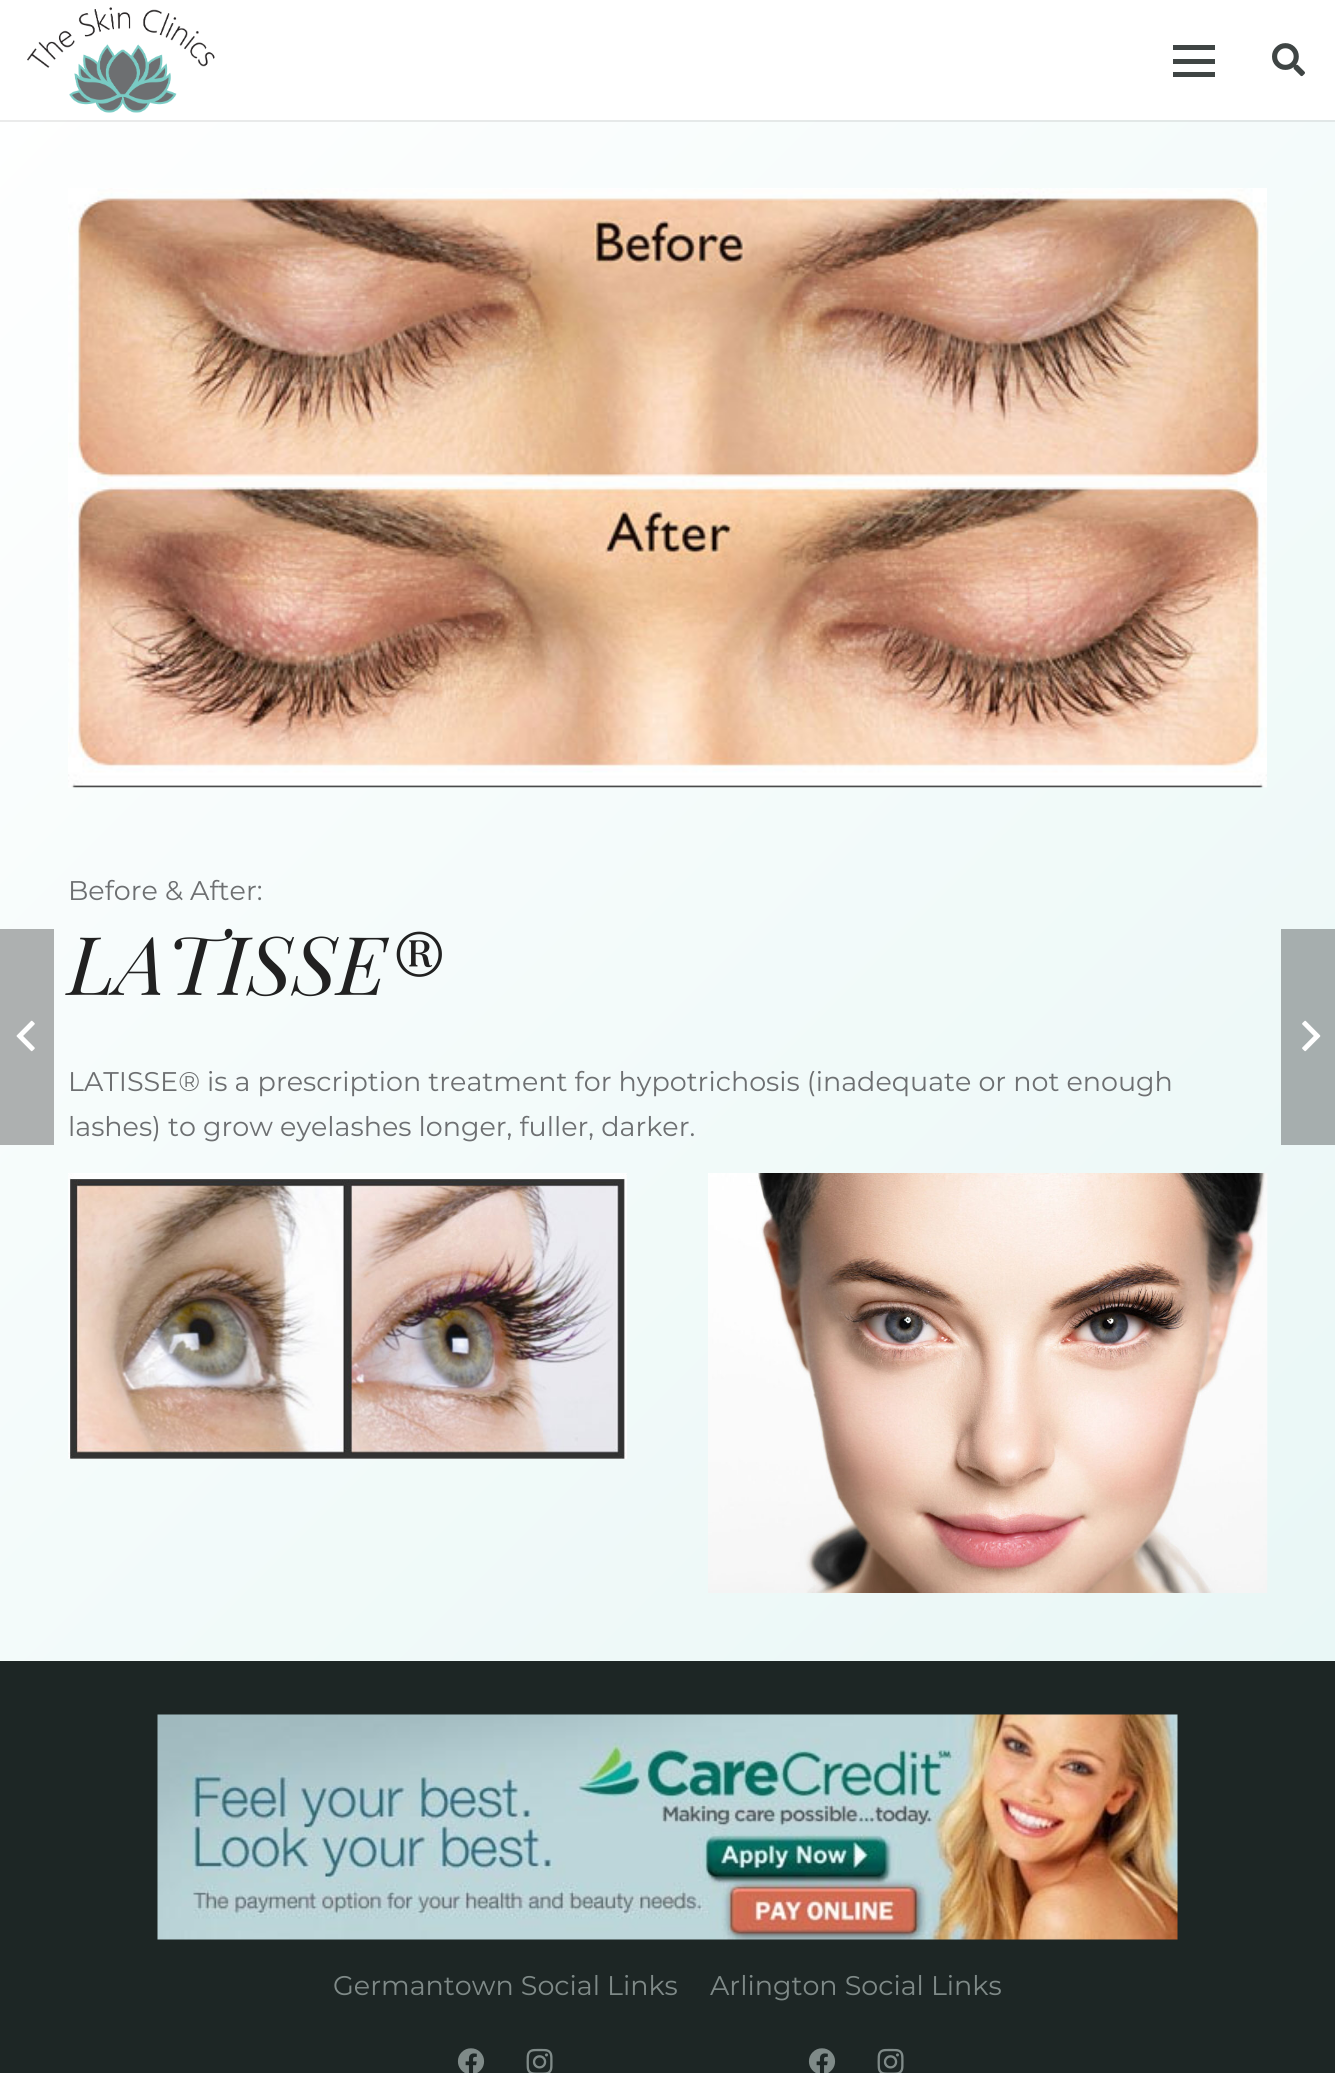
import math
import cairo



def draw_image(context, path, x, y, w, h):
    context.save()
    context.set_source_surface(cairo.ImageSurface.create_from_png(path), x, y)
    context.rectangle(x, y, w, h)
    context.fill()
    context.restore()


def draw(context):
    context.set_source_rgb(1, 1, 1)
    context.paint()
    gradient = cairo.LinearGradient(-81, 81, 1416, 1579)
    gradient.add_color_stop_rgba(0, 1, 1, 1, 1)
    gradient.add_color_stop_rgba(1, 233 / 255, 247 / 255, 246 / 255, 1)
    context.set_source(gradient)
    context.rectangle(0, 122, 1335, 1539)
    context.fill()
    gradient = cairo.LinearGradient(-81, 81, 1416, 1579)
    gradient.add_color_stop_rgba(0, 235 / 255, 235 / 255, 235 / 255, 1)
    gradient.add_color_stop_rgba(1, 214 / 255, 227 / 255, 226 / 255, 1)
    context.set_source(gradient)
    context.rectangle(0, 120, 1335, 2)
    context.fill()
    draw_image(context, "images/1.png", 27, 7, 188, 106)
    context.set_source_rgb(63 / 255, 69 / 255, 68 / 255)
    context.rectangle(1173, 59, 42, 5)
    context.fill()
    context.rectangle(1173, 45, 42, 5)
    context.fill()
    context.rectangle(1173, 72, 42, 5)
    context.fill()
    draw_image(context, "images/2.png", 1272, 43, 33, 34)
    draw_image(context, "images/3.png", 68, 188, 1199, 600)
    context.set_source_rgb(173 / 255, 176 / 255, 176 / 255)
    context.rectangle(0, 929, 54, 216)
    context.fill()
    draw_image(context, "images/4.png", 16, 1020, 19, 32)
    context.set_source_rgb(166 / 255, 174 / 255, 174 / 255)
    context.rectangle(1281, 929, 54, 216)
    context.fill()
    draw_image(context, "images/5.png", 1302, 1020, 19, 32)
    draw_image(context, "images/6.png", 68, 1173, 559, 286)
    draw_image(context, "images/7.png", 708, 1173, 560, 420)
    context.set_source_rgb(29 / 255, 38 / 255, 37 / 255)
    context.rectangle(0, 1661, 1335, 412)
    context.fill()
    draw_image(context, "images/8.png", 157, 1714, 1021, 226)
    draw_image(context, "images/9.png", 457, 2048, 28, 25)
    draw_image(context, "images/10.png", 526, 2048, 27, 25)
    draw_image(context, "images/9.png", 808, 2048, 28, 25)
    draw_image(context, "images/10.png", 877, 2048, 27, 25)
    context.select_font_face("Montserrat")
    context.set_font_size(27)
    context.set_source_rgb(109 / 255, 111 / 255, 113 / 255)
    context.move_to(68, 900)
    context.show_text("Before & After:")
    context.select_font_face("Playfair Display", cairo.FontSlant.ITALIC)
    context.set_font_size(81)
    context.set_source_rgb(33 / 255, 33 / 255, 33 / 255)
    context.move_to(68, 995)
    context.show_text("LATISSE®")
    context.select_font_face("Montserrat")
    context.set_font_size(27)
    context.set_source_rgb(109 / 255, 111 / 255, 113 / 255)
    context.move_to(68, 1091)
    context.show_text("LATISSE® is a prescription treatment for hypotrichosis (inadequate or not enough")
    context.move_to(68, 1136)
    context.show_text("lashes) to grow eyelashes longer, fuller, darker.")
    context.set_source_rgb(127 / 255, 138 / 255, 136 / 255)
    context.move_to(333, 1995)
    context.show_text("Germantown Social Links")
    context.move_to(710, 1995)
    context.show_text("Arlington Social Links")


surface = cairo.ImageSurface(cairo.Format.RGB24, 1335, 2073)
context = cairo.Context(surface)
options = cairo.FontOptions()
options.set_hint_metrics(cairo.HintMetrics.OFF)
options.set_hint_style(cairo.HintStyle.NONE)
context.set_font_options(options)
context.set_miter_limit(4)
draw(context)
surface.write_to_png("out.png")
